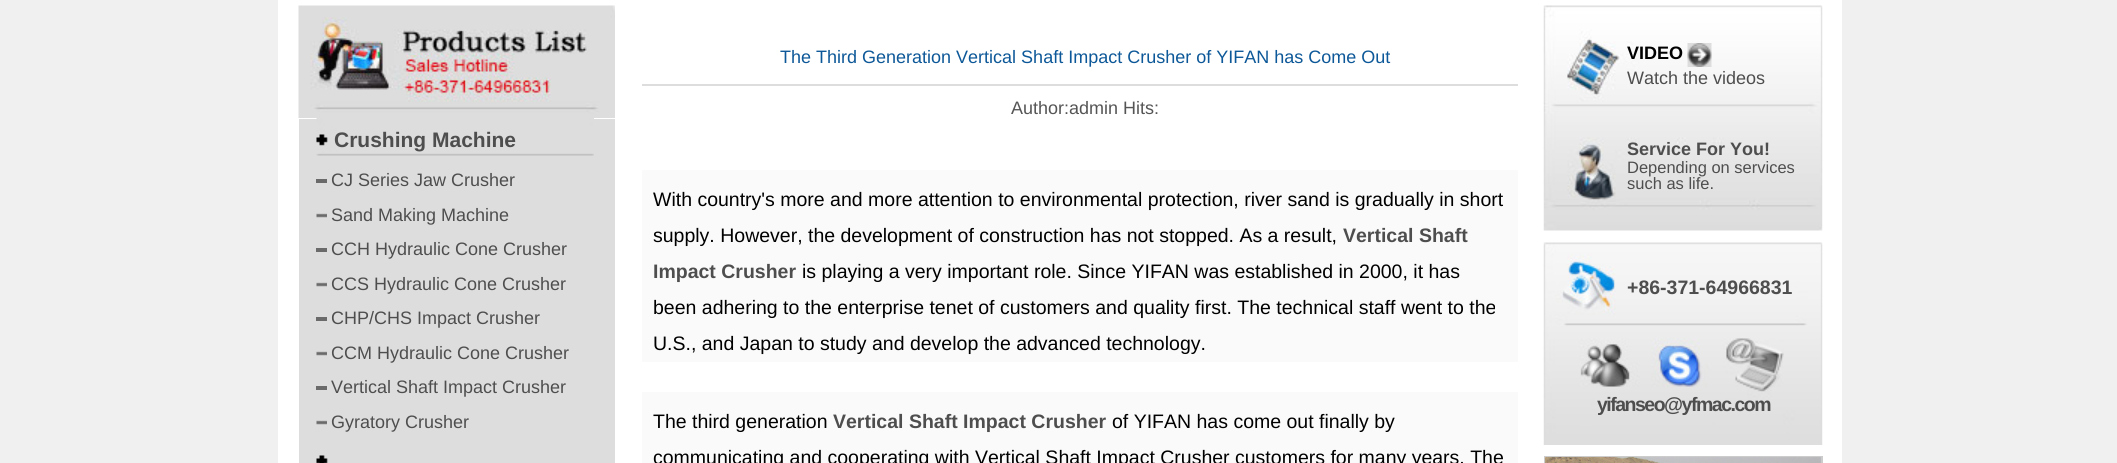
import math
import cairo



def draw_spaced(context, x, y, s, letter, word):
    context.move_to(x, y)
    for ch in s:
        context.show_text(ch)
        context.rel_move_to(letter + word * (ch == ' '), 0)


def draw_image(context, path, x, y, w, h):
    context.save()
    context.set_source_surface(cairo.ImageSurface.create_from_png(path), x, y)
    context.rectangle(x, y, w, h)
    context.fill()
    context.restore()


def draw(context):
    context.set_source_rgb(240 / 255, 240 / 255, 240 / 255)
    context.paint()
    context.set_source_rgb(1, 1, 1)
    context.rectangle(278, 0, 1564, 463)
    context.fill()
    draw_image(context, "images/1.png", 298, 5, 317, 113)
    context.set_source_rgb(221 / 255, 221 / 255, 221 / 255)
    context.rectangle(299, 119, 316, 344)
    context.fill()
    draw_image(context, "images/2.png", 316, 118, 278, 38)
    context.set_source_rgb(106 / 255, 106 / 255, 106 / 255)
    context.rectangle(316, 179, 11, 4)
    context.fill()
    draw_image(context, "images/3.png", 316, 213, 11, 5)
    context.rectangle(316, 248, 11, 4)
    context.fill()
    draw_image(context, "images/3.png", 316, 282, 11, 5)
    context.rectangle(316, 317, 11, 4)
    context.fill()
    draw_image(context, "images/3.png", 316, 351, 11, 5)
    context.rectangle(316, 386, 11, 4)
    context.fill()
    draw_image(context, "images/3.png", 316, 420, 11, 5)
    draw_image(context, "images/4.png", 316, 455, 12, 8)
    context.set_source_rgb(221 / 255, 221 / 255, 221 / 255)
    context.rectangle(642, 84, 876, 2)
    context.fill()
    context.set_source_rgb(250 / 255, 250 / 255, 250 / 255)
    context.rectangle(642, 170, 876, 192)
    context.fill()
    context.rectangle(642, 392, 876, 71)
    context.fill()
    draw_image(context, "images/5.png", 1543, 5, 280, 226)
    draw_image(context, "images/6.png", 1687, 43, 25, 24)
    draw_image(context, "images/7.png", 1543, 242, 280, 203)
    context.rectangle(1545, 457, 277, 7)
    context.set_source_rgb(204 / 255, 204 / 255, 204 / 255)
    context.stroke()
    draw_image(context, "images/8.png", 1545, 457, 276, 6)
    context.select_font_face("Liberation Sans", cairo.FontSlant.NORMAL, cairo.FontWeight.BOLD)
    context.set_font_size(21)
    context.set_source_rgb(78 / 255, 78 / 255, 78 / 255)
    context.move_to(334, 147)
    context.show_text("Crushing Machine")
    context.select_font_face("Liberation Sans")
    context.set_font_size(18)
    context.move_to(331, 186)
    context.show_text("CJ Series Jaw Crusher")
    context.move_to(331, 221)
    context.show_text("Sand Making Machine")
    context.move_to(331, 255)
    context.show_text("CCH Hydraulic Cone Crusher")
    context.move_to(331, 290)
    context.show_text("CCS Hydraulic Cone Crusher")
    context.move_to(331, 324)
    context.show_text("CHP/CHS Impact Crusher")
    context.move_to(331, 359)
    context.show_text("CCM Hydraulic Cone Crusher")
    context.move_to(331, 393)
    context.show_text("Vertical Shaft Impact Crusher")
    context.move_to(331, 428)
    context.show_text("Gyratory Crusher")
    context.set_source_rgb(13 / 255, 88 / 255, 152 / 255)
    context.move_to(780, 63)
    context.show_text("The Third Generation Vertical Shaft Impact Crusher of YIFAN has Come Out")
    context.set_source_rgb(85 / 255, 85 / 255, 85 / 255)
    context.move_to(1011, 114)
    context.show_text("Author:admin Hits:")
    context.set_font_size(19.5)
    context.set_source_rgb(0, 0, 0)
    context.move_to(653, 206)
    context.show_text("With country's more and more attention to environmental protection, river sand is gradually in short")
    context.move_to(653, 242)
    context.show_text("supply. However, the development of construction has not stopped. As a result,")
    context.select_font_face("Liberation Sans", cairo.FontSlant.NORMAL, cairo.FontWeight.BOLD)
    context.set_source_rgb(78 / 255, 78 / 255, 78 / 255)
    context.move_to(1343, 242)
    context.show_text("Vertical Shaft")
    context.move_to(653, 278)
    context.show_text("Impact Crusher")
    context.select_font_face("Liberation Sans")
    context.set_source_rgb(0, 0, 0)
    context.move_to(802, 278)
    context.show_text("is playing a very important role. Since YIFAN was established in 2000, it has")
    context.move_to(653, 314)
    context.show_text("been adhering to the enterprise tenet of customers and quality first. The technical staff went to the")
    context.move_to(653, 350)
    context.show_text("U.S., and Japan to study and develop the advanced technology.")
    context.move_to(653, 428)
    context.show_text("The third generation")
    context.select_font_face("Liberation Sans", cairo.FontSlant.NORMAL, cairo.FontWeight.BOLD)
    context.set_source_rgb(78 / 255, 78 / 255, 78 / 255)
    context.move_to(833, 428)
    context.show_text("Vertical Shaft Impact Crusher")
    context.select_font_face("Liberation Sans")
    context.set_source_rgb(0, 0, 0)
    context.move_to(1112, 428)
    context.show_text("of YIFAN has come out finally by")
    context.move_to(653, 464)
    context.show_text("communicating and cooperating with Vertical Shaft Impact Crusher customers for many years. The")
    context.select_font_face("Liberation Sans", cairo.FontSlant.NORMAL, cairo.FontWeight.BOLD)
    context.set_font_size(18)
    context.move_to(1627, 59)
    context.show_text("VIDEO")
    context.select_font_face("Liberation Sans")
    context.set_source_rgb(78 / 255, 78 / 255, 78 / 255)
    context.move_to(1627, 84)
    context.show_text("Watch the videos")
    context.select_font_face("Liberation Sans", cairo.FontSlant.NORMAL, cairo.FontWeight.BOLD)
    context.move_to(1627, 155)
    context.show_text("Service For You!")
    context.select_font_face("Liberation Sans")
    context.set_font_size(16.5)
    context.move_to(1627, 173)
    context.show_text("Depending on services")
    context.move_to(1627, 189)
    context.show_text("such as life.")
    context.select_font_face("Liberation Sans", cairo.FontSlant.NORMAL, cairo.FontWeight.BOLD)
    context.set_font_size(19.5)
    context.move_to(1627, 294)
    context.show_text("+86-371-64966831")
    draw_spaced(context, 1597, 411, "yifanseo@yfmac.com", -1.5, 0)


surface = cairo.ImageSurface(cairo.Format.RGB24, 2117, 463)
context = cairo.Context(surface)
options = cairo.FontOptions()
options.set_hint_metrics(cairo.HintMetrics.OFF)
options.set_hint_style(cairo.HintStyle.NONE)
context.set_font_options(options)
context.set_miter_limit(4)
draw(context)
surface.write_to_png("out.png")
